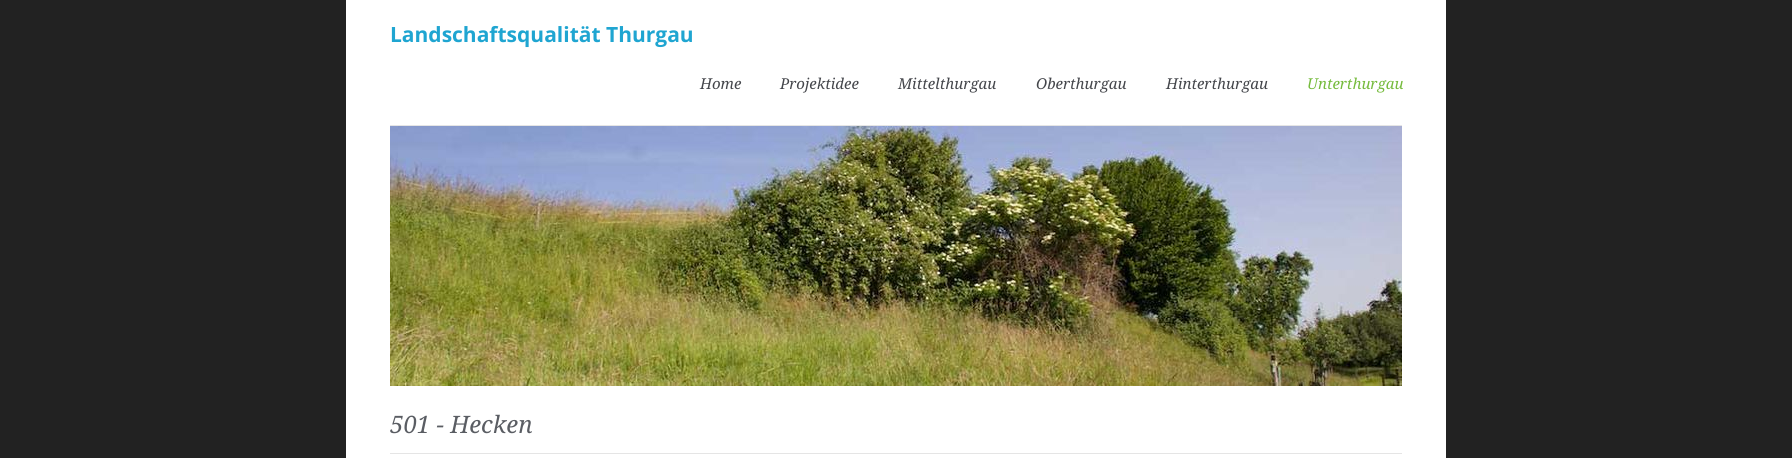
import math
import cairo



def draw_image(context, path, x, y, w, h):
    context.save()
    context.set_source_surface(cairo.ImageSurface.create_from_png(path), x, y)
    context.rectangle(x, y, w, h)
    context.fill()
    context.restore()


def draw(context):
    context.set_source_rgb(34 / 255, 34 / 255, 34 / 255)
    context.paint()
    context.set_source_rgb(1, 1, 1)
    context.rectangle(346, 0, 1100, 458)
    context.fill()
    context.set_source_rgb(229 / 255, 229 / 255, 229 / 255)
    context.rectangle(390, 125, 1012, 1)
    context.fill()
    context.rectangle(390, 453, 1012, 1)
    context.fill()
    draw_image(context, "images/1.png", 390, 126, 1012, 260)
    context.select_font_face("Open Sans", cairo.FontSlant.NORMAL, cairo.FontWeight.BOLD)
    context.set_font_size(21)
    context.set_source_rgb(31 / 255, 165 / 255, 209 / 255)
    context.move_to(390, 42)
    context.show_text("Landschaftsqualität Thurgau")
    context.select_font_face("Droid Serif", cairo.FontSlant.ITALIC)
    context.set_font_size(15)
    context.set_source_rgb(68 / 255, 70 / 255, 75 / 255)
    context.move_to(700, 89)
    context.show_text("Home")
    context.move_to(780, 89)
    context.show_text("Projektidee")
    context.move_to(898, 89)
    context.show_text("Mittelthurgau")
    context.move_to(1036, 89)
    context.show_text("Oberthurgau")
    context.move_to(1166, 89)
    context.show_text("Hinterthurgau")
    context.set_source_rgb(117 / 255, 187 / 255, 60 / 255)
    context.move_to(1307, 89)
    context.show_text("Unterthurgau")
    context.set_font_size(24)
    context.set_source_rgb(90 / 255, 93 / 255, 99 / 255)
    context.move_to(390, 433)
    context.show_text("501 - Hecken")


surface = cairo.ImageSurface(cairo.Format.RGB24, 1792, 458)
context = cairo.Context(surface)
options = cairo.FontOptions()
options.set_hint_metrics(cairo.HintMetrics.OFF)
options.set_hint_style(cairo.HintStyle.NONE)
context.set_font_options(options)
context.set_miter_limit(4)
draw(context)
surface.write_to_png("out.png")
